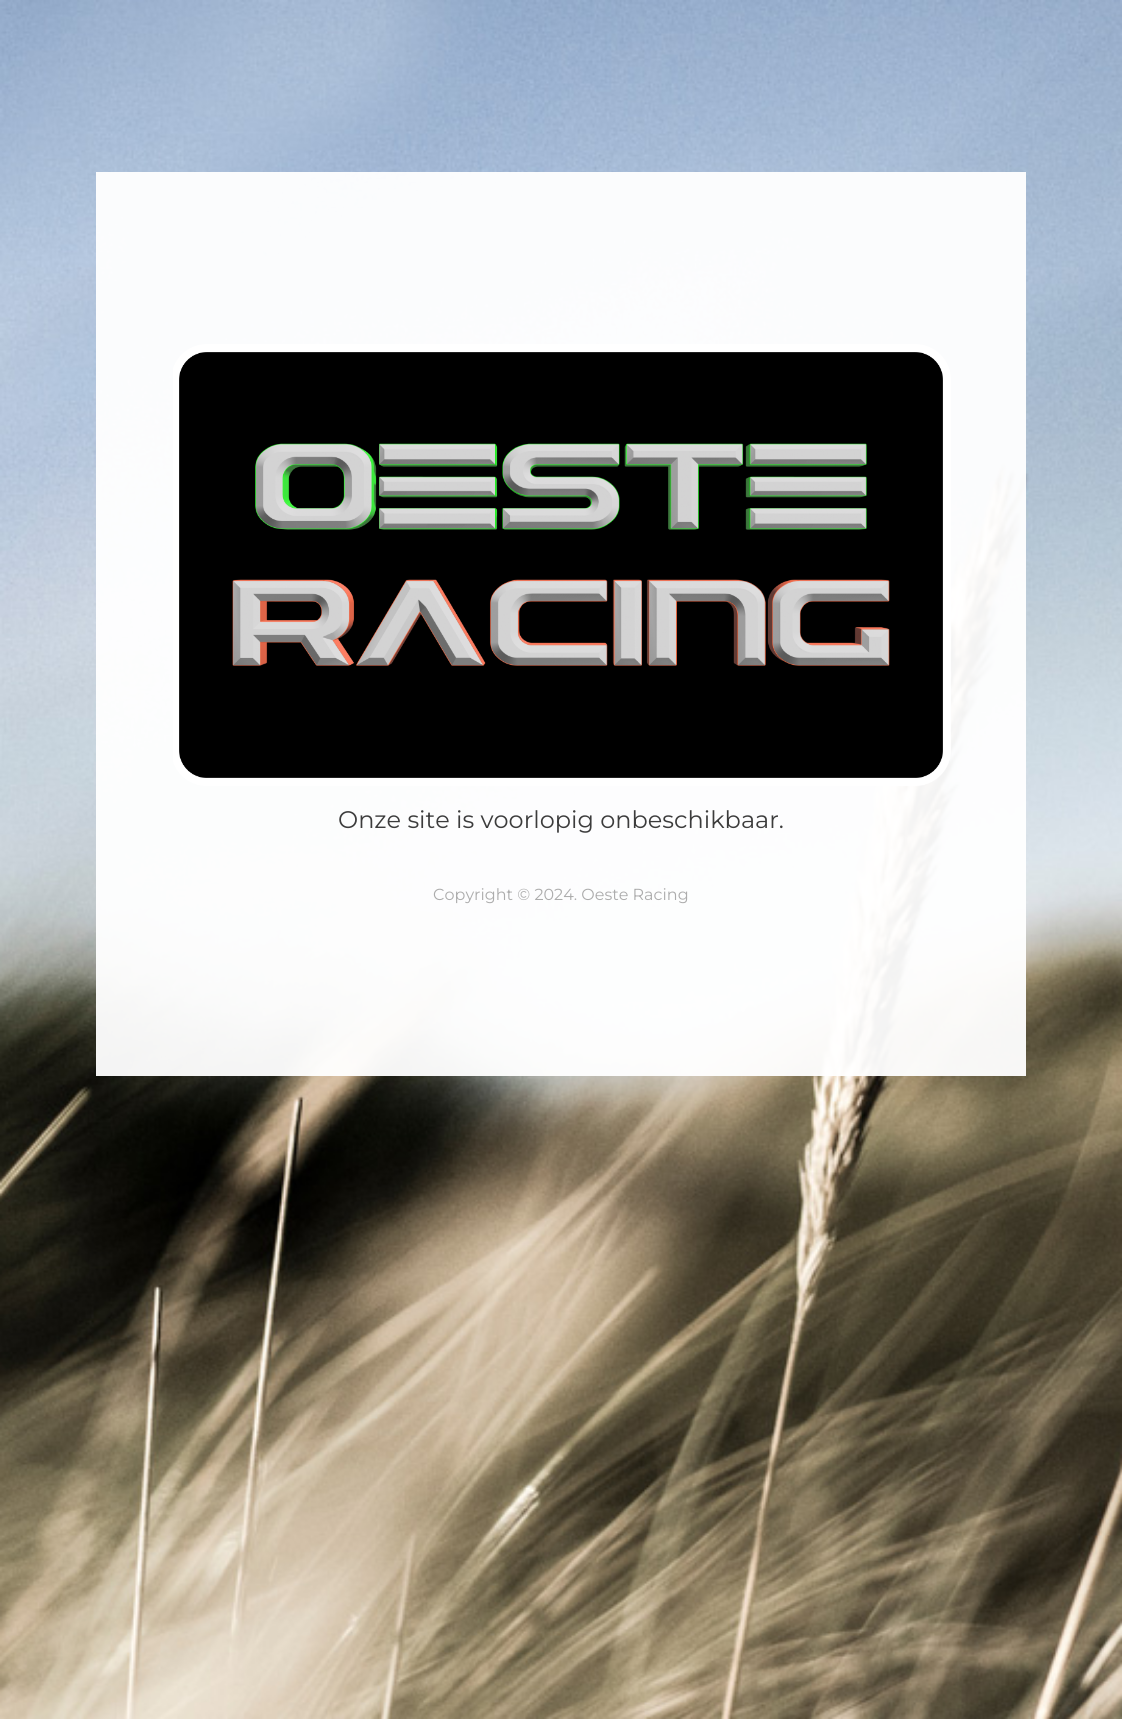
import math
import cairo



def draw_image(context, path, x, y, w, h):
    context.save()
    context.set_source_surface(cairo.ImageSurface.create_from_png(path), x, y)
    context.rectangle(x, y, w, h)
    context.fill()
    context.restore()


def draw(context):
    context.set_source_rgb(1, 1, 1)
    context.paint()
    draw_image(context, "images/1.png", 0, 0, 1122, 1719)
    context.set_source_rgba(1, 1, 1, 0.95)
    context.rectangle(96, 172, 930, 904)
    context.fill()
    draw_image(context, "images/2.png", 173, 344, 778, 442)
    context.select_font_face("Montserrat")
    context.set_font_size(24)
    context.set_source_rgb(60 / 255, 60 / 255, 60 / 255)
    context.move_to(338, 828)
    context.show_text("Onze site is voorlopig onbeschikbaar.")
    context.set_font_size(16)
    context.set_source_rgb(172 / 255, 172 / 255, 172 / 255)
    context.move_to(433, 900)
    context.show_text("Copyright © 2024. Oeste Racing")


surface = cairo.ImageSurface(cairo.Format.RGB24, 1122, 1719)
context = cairo.Context(surface)
options = cairo.FontOptions()
options.set_hint_metrics(cairo.HintMetrics.OFF)
options.set_hint_style(cairo.HintStyle.NONE)
context.set_font_options(options)
context.set_miter_limit(4)
draw(context)
surface.write_to_png("out.png")
